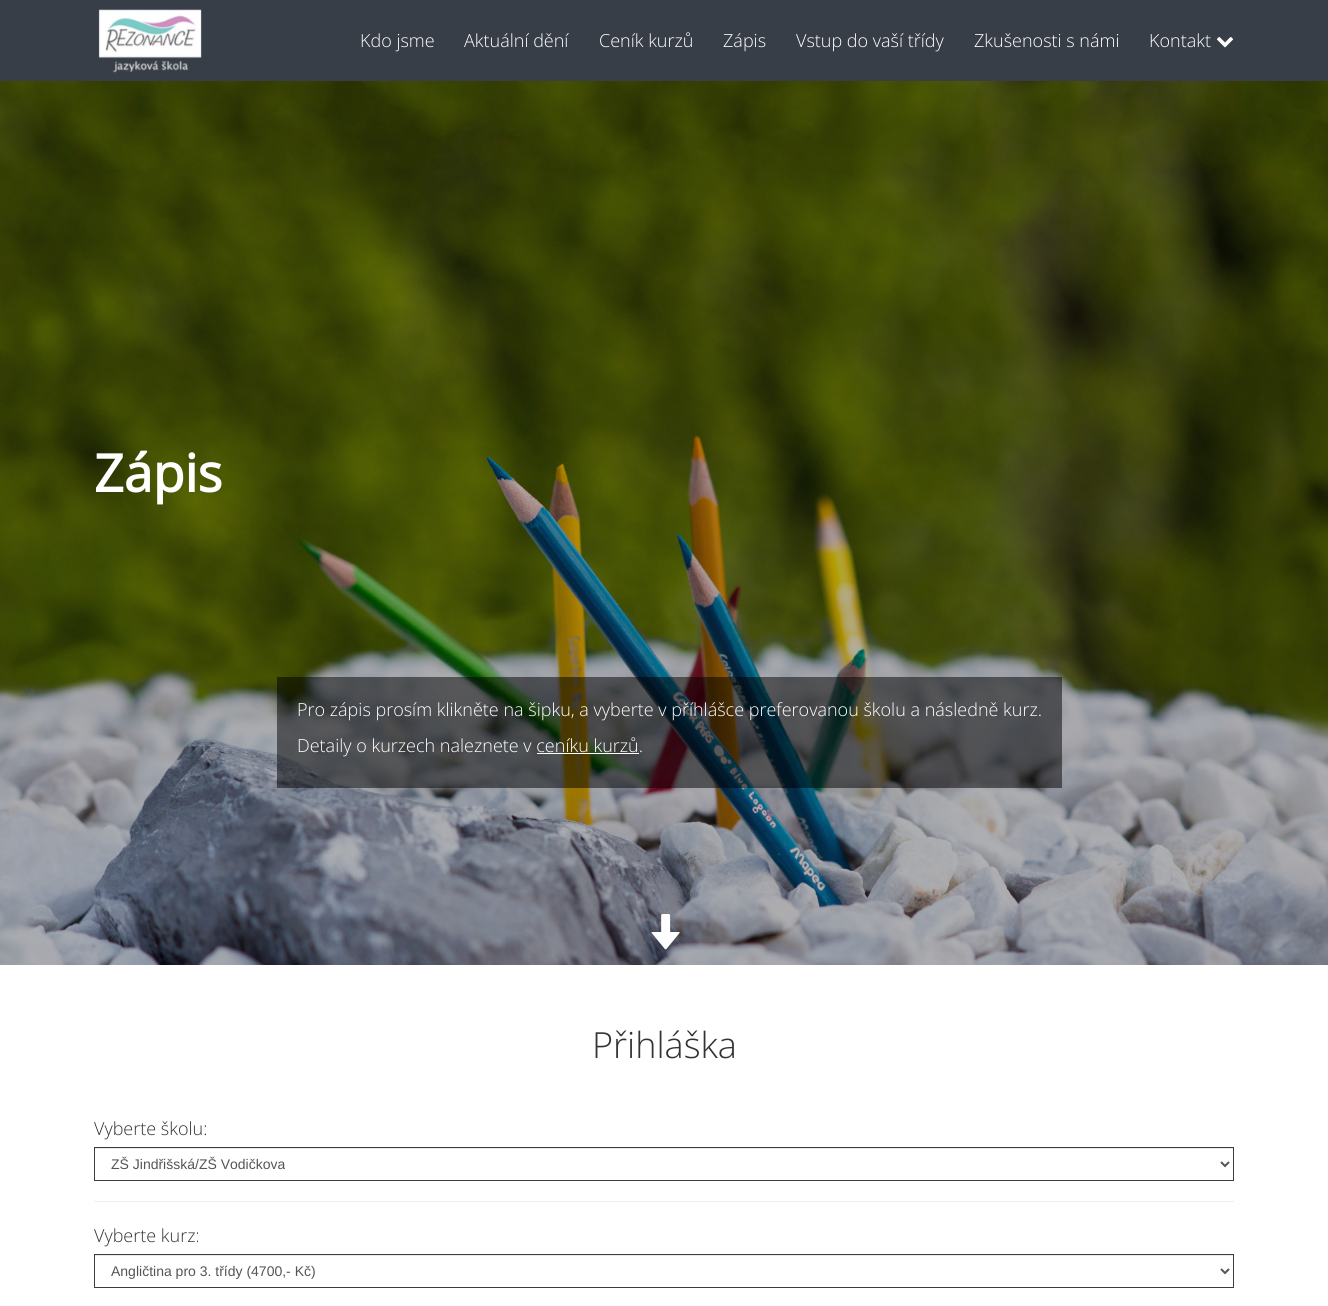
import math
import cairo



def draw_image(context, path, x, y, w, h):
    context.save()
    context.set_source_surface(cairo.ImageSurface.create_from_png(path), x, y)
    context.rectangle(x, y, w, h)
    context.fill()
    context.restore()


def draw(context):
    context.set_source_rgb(1, 1, 1)
    context.paint()
    context.set_source_rgb(56 / 255, 62 / 255, 71 / 255)
    context.rectangle(0, 0, 1328, 81)
    context.fill()
    draw_image(context, "images/1.png", 98, 9, 104, 64)
    draw_image(context, "images/2.png", 1216, 37, 18, 11)
    draw_image(context, "images/3.png", 0, 81, 1328, 884)
    context.set_source_rgba(0, 0, 0, 0.5)
    context.rectangle(277, 677, 785, 111)
    context.fill()
    context.set_source_rgb(1, 1, 1)
    context.rectangle(537, 753, 102, 1)
    context.fill()
    draw_image(context, "images/4.png", 651, 914, 29, 36)
    context.set_source_rgb(236 / 255, 236 / 255, 236 / 255)
    context.rectangle(95, 1148, 1138, 1)
    context.fill()
    context.rectangle(94.5, 1147.5, 1139, 33)
    context.set_source_rgb(56 / 255, 62 / 255, 71 / 255)
    context.set_line_width(1)
    context.stroke()
    context.new_path()
    context.move_to(1221, 1162)
    context.line_to(1225, 1166)
    context.line_to(1229, 1162)
    context.set_source_rgb(85 / 255, 85 / 255, 85 / 255)
    context.set_line_width(2)
    context.stroke()
    context.set_source_rgb(238 / 255, 238 / 255, 238 / 255)
    context.rectangle(94, 1201, 1140, 1)
    context.fill()
    context.set_source_rgb(236 / 255, 236 / 255, 236 / 255)
    context.rectangle(95, 1255, 1138, 1)
    context.fill()
    context.rectangle(94.5, 1254.5, 1139, 33)
    context.set_source_rgb(56 / 255, 62 / 255, 71 / 255)
    context.set_line_width(1)
    context.stroke()
    context.new_path()
    context.move_to(1221, 1269)
    context.line_to(1225, 1273)
    context.line_to(1229, 1269)
    context.set_source_rgb(85 / 255, 85 / 255, 85 / 255)
    context.set_line_width(2)
    context.stroke()
    context.select_font_face("Open Sans Light")
    context.set_font_size(18)
    context.set_source_rgb(1, 1, 1)
    context.move_to(360, 47)
    context.show_text("Kdo jsme")
    context.move_to(464, 47)
    context.show_text("Aktuální dění")
    context.move_to(599, 47)
    context.show_text("Ceník kurzů")
    context.move_to(723, 47)
    context.show_text("Zápis")
    context.move_to(796, 47)
    context.show_text("Vstup do vaší třídy")
    context.move_to(974, 47)
    context.show_text("Zkušenosti s námi")
    context.move_to(1149, 47)
    context.show_text("Kontakt")
    context.select_font_face("Open Sans", cairo.FontSlant.NORMAL, cairo.FontWeight.BOLD)
    context.set_font_size(52)
    context.move_to(94, 492)
    context.show_text("Zápis")
    context.select_font_face("Open Sans Light")
    context.set_font_size(18)
    context.move_to(297, 716)
    context.show_text("Pro zápis prosím klikněte na šipku, a vyberte v příhlášce preferovanou školu a následně kurz.")
    context.move_to(297, 752)
    context.show_text("Detaily o kurzech naleznete v ceníku kurzů.")
    context.set_font_size(36)
    context.set_source_rgb(51 / 255, 51 / 255, 51 / 255)
    context.move_to(592, 1058)
    context.show_text("Přihláška")
    context.set_font_size(18)
    context.move_to(94, 1135)
    context.show_text("Vyberte školu:")
    context.select_font_face("Liberation Sans")
    context.set_font_size(14)
    context.set_source_rgb(85 / 255, 85 / 255, 85 / 255)
    context.move_to(111, 1169)
    context.show_text("ZŠ Jindřišská/ZŠ Vodičkova")
    context.select_font_face("Open Sans Light")
    context.set_font_size(18)
    context.set_source_rgb(51 / 255, 51 / 255, 51 / 255)
    context.move_to(94, 1242)
    context.show_text("Vyberte kurz:")
    context.select_font_face("Liberation Sans")
    context.set_font_size(14)
    context.set_source_rgb(85 / 255, 85 / 255, 85 / 255)
    context.move_to(111, 1276)
    context.show_text("Angličtina pro 3. třídy (4700,- Kč)")


surface = cairo.ImageSurface(cairo.Format.RGB24, 1328, 1306)
context = cairo.Context(surface)
options = cairo.FontOptions()
options.set_hint_metrics(cairo.HintMetrics.OFF)
options.set_hint_style(cairo.HintStyle.NONE)
context.set_font_options(options)
context.set_miter_limit(4)
draw(context)
surface.write_to_png("out.png")
